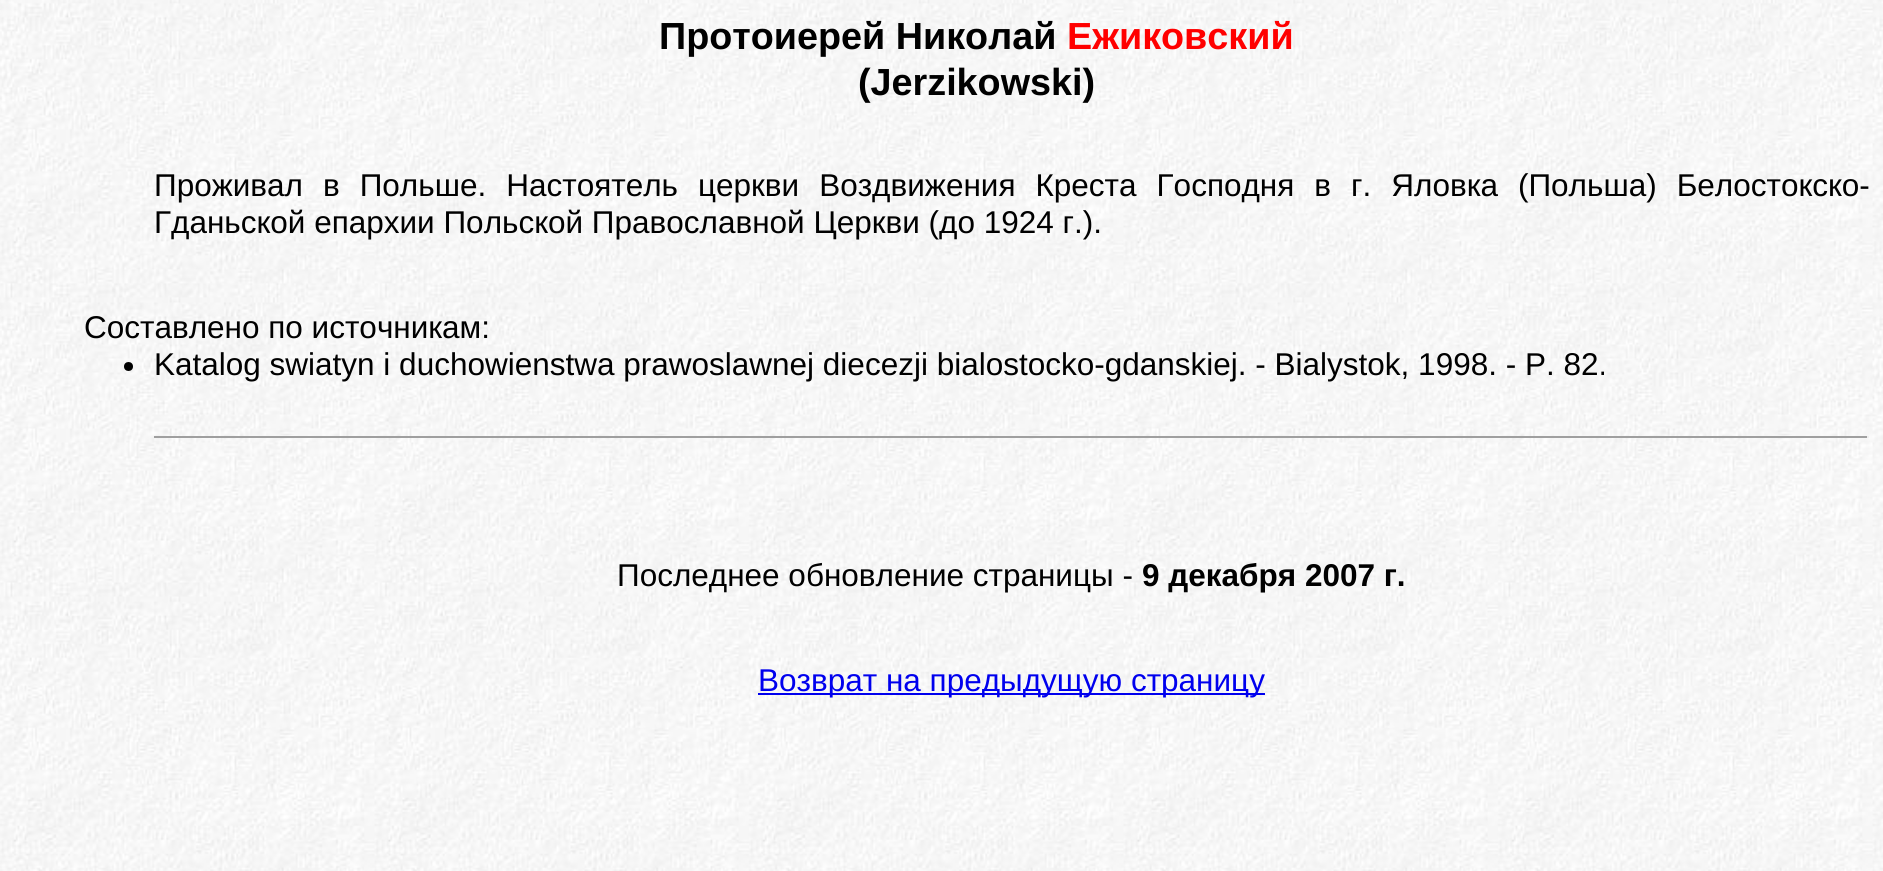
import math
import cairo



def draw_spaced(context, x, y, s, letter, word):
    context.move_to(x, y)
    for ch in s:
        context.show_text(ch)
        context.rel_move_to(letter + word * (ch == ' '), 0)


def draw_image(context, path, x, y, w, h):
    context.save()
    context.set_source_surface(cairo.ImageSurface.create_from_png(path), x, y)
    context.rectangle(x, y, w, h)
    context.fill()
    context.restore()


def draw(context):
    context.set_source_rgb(1, 1, 1)
    context.paint()
    draw_image(context, "images/1.png", 0, 0, 1883, 871)
    context.set_source_rgb(0, 0, 0)
    context.arc(128.5, 366.5, 4.5, 0, 2 * math.pi)
    context.fill()
    context.set_source_rgb(159 / 255, 159 / 255, 159 / 255)
    context.rectangle(154, 436, 1715, 2)
    context.fill()
    context.set_source_rgb(238 / 255, 238 / 255, 238 / 255)
    context.rectangle(1867, 436, 2, 2)
    context.fill()
    context.set_source_rgb(0, 0, 238 / 255)
    context.rectangle(758, 693, 507, 2)
    context.fill()
    context.select_font_face("Liberation Sans", cairo.FontSlant.NORMAL, cairo.FontWeight.BOLD)
    context.set_font_size(37.75)
    context.set_source_rgb(0, 0, 0)
    context.move_to(659, 49)
    context.show_text("Протоиерей Николай")
    context.set_source_rgb(1, 0, 0)
    context.move_to(1067, 49)
    context.show_text("Ежиковский")
    context.set_source_rgb(0, 0, 0)
    context.move_to(858, 95)
    context.show_text("(Jerzikowski)")
    context.select_font_face("Liberation Sans")
    context.set_font_size(31.5)
    draw_spaced(context, 154, 196, "Проживал в Польше. Настоятель церкви Воздвижения Креста Господня в г. Яловка (Польша) Белостокско-", 0, 11.25)
    context.move_to(154, 233)
    context.show_text("Гданьской епархии Польской Православной Церкви (до 1924 г.).")
    context.move_to(84, 338)
    context.show_text("Составлено по источникам:")
    context.move_to(154, 375)
    context.show_text("Katalog swiatyn i duchowienstwa prawoslawnej diecezji bialostocko-gdanskiej. - Bialystok, 1998. - P. 82.")
    context.move_to(617, 586)
    context.show_text("Последнее обновление страницы -")
    context.select_font_face("Liberation Sans", cairo.FontSlant.NORMAL, cairo.FontWeight.BOLD)
    context.move_to(1142, 586)
    context.show_text("9 декабря 2007 г.")
    context.select_font_face("Liberation Sans")
    context.set_source_rgb(0, 0, 238 / 255)
    context.move_to(758, 691)
    context.show_text("Возврат на предыдущую страницу")


surface = cairo.ImageSurface(cairo.Format.RGB24, 1883, 871)
context = cairo.Context(surface)
options = cairo.FontOptions()
options.set_hint_metrics(cairo.HintMetrics.OFF)
options.set_hint_style(cairo.HintStyle.NONE)
context.set_font_options(options)
context.set_miter_limit(4)
draw(context)
surface.write_to_png("out.png")
